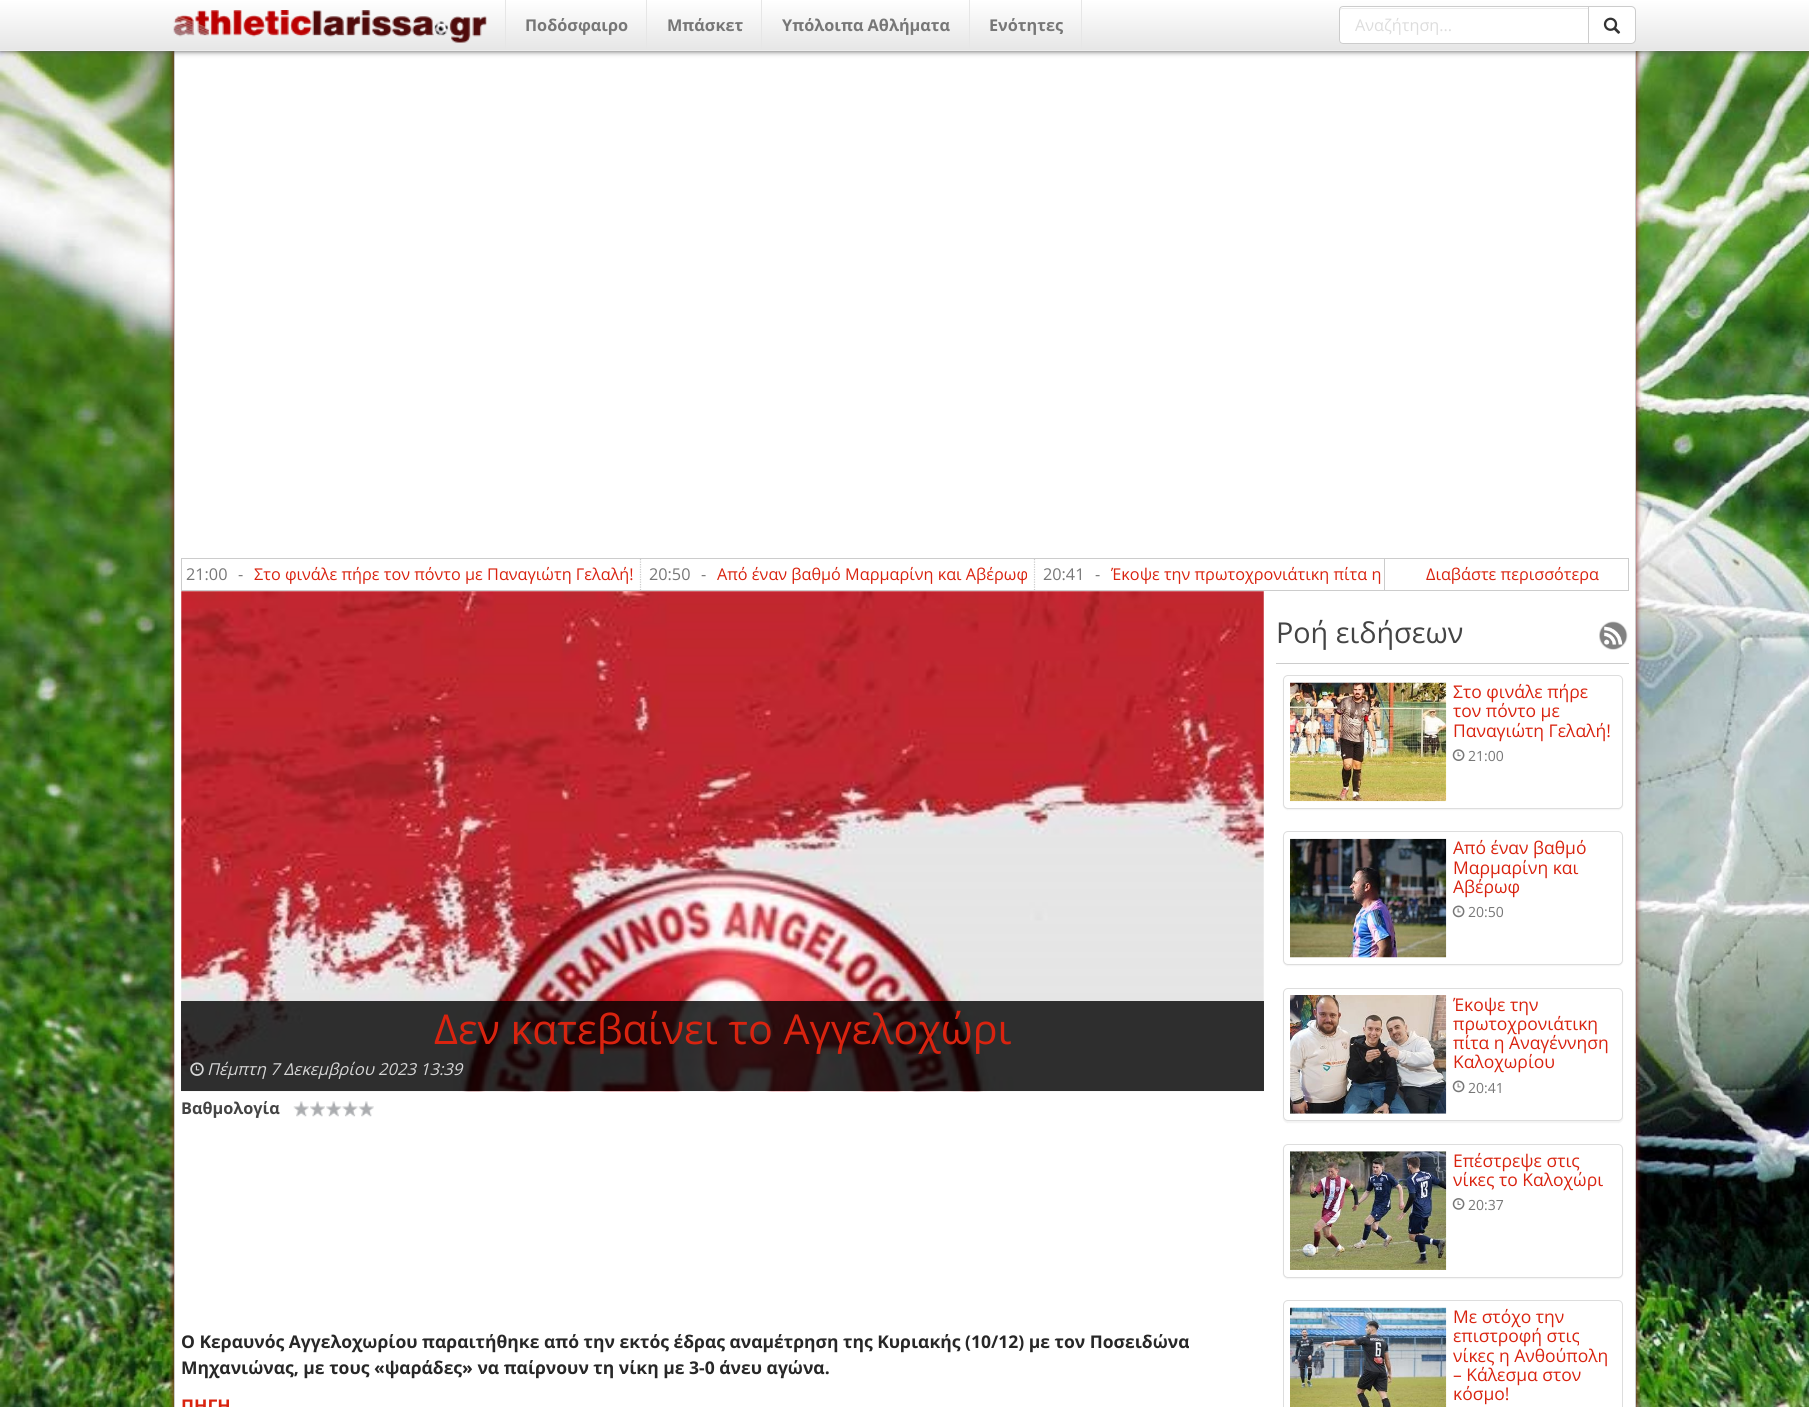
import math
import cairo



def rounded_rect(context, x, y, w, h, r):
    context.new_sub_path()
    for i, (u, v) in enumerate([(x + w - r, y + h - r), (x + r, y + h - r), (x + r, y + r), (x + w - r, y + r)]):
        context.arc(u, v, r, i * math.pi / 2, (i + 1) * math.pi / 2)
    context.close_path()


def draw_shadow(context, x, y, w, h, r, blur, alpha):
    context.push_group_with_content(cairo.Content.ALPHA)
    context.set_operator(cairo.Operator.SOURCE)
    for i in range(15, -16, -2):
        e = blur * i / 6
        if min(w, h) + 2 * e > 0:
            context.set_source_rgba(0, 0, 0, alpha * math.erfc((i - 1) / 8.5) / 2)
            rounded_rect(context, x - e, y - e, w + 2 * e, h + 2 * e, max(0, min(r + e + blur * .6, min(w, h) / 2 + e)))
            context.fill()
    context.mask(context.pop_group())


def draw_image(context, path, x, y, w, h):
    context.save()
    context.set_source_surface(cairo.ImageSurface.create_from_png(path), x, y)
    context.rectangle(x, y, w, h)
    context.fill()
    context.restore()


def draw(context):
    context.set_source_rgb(1, 1, 1)
    context.paint()
    draw_image(context, "images/1.png", 0, 51, 1809, 1356)
    context.set_source_rgb(138 / 255, 25 / 255, 25 / 255)
    draw_shadow(context, 174, 44, 1462, 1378, 6, 3, 1)
    context.set_source_rgb(1, 1, 1)
    context.rectangle(175, 51, 1460, 1356)
    context.fill()
    context.rectangle(174.5, 44.5, 1461, 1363)
    context.set_source_rgb(204 / 255, 204 / 255, 204 / 255)
    context.set_line_width(1)
    context.stroke()
    context.set_source_rgb(77 / 255, 77 / 255, 77 / 255)
    draw_shadow(context, 0, 0, 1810, 51, 0, 3, 1)
    gradient = cairo.LinearGradient(905, 0, 905, 50)
    gradient.add_color_stop_rgba(0, 1, 1, 1, 1)
    gradient.add_color_stop_rgba(1, 230 / 255, 230 / 255, 230 / 255, 1)
    context.set_source(gradient)
    context.rectangle(0, 0, 1809, 50)
    context.fill()
    context.set_source_rgb(238 / 255, 238 / 255, 238 / 255)
    context.rectangle(0, 50, 1809, 1)
    context.fill()
    draw_image(context, "images/2.png", 173, 10, 314, 33)
    context.set_source_rgb(230 / 255, 230 / 255, 230 / 255)
    context.rectangle(646, 0, 1, 50)
    context.fill()
    context.rectangle(505, 0, 1, 50)
    context.fill()
    context.rectangle(761, 0, 1, 50)
    context.fill()
    context.rectangle(969, 0, 1, 50)
    context.fill()
    context.rectangle(1081, 0, 1, 50)
    context.fill()
    context.set_source_rgb(1, 1, 1)
    context.new_path()
    context.move_to(1343, 6)
    context.line_to(1589, 6)
    context.line_to(1589, 44)
    context.line_to(1343, 44)
    context.curve_to(1341, 44, 1339, 42, 1339, 40)
    context.line_to(1339, 10)
    context.curve_to(1339, 8, 1341, 6, 1343, 6)
    context.close_path()
    context.fill()
    context.set_source_rgb(236 / 255, 236 / 255, 236 / 255)
    context.new_path()
    context.move_to(1342, 9)
    context.line_to(1588, 9)
    context.line_to(1588, 8)
    context.line_to(1342, 8)
    context.line_to(1340, 9)
    context.line_to(1340, 11)
    context.curve_to(1340, 10, 1341, 9, 1342, 9)
    context.close_path()
    context.fill()
    context.new_path()
    context.move_to(1343, 6.5)
    context.line_to(1588.5, 6.5)
    context.line_to(1588.5, 43.5)
    context.line_to(1343, 43.5)
    context.curve_to(1341, 43.5, 1339.5, 42, 1339.5, 40)
    context.line_to(1339.5, 10)
    context.curve_to(1339.5, 8, 1341, 6.5, 1343, 6.5)
    context.close_path()
    context.set_source_rgb(204 / 255, 204 / 255, 204 / 255)
    context.stroke()
    context.set_source_rgb(1, 1, 1)
    context.new_path()
    context.move_to(1588.5, 6.5)
    context.line_to(1631, 6.5)
    context.curve_to(1633.5, 6.5, 1635.5, 8.5, 1635.5, 11)
    context.line_to(1635.5, 39)
    context.curve_to(1635.5, 41.5, 1633.5, 43.5, 1631, 43.5)
    context.line_to(1588.5, 43.5)
    context.close_path()
    context.fill_preserve()
    context.set_source_rgb(204 / 255, 204 / 255, 204 / 255)
    context.stroke()
    draw_image(context, "images/3.png", 1603, 17, 18, 17)
    context.rectangle(181.5, 558.5, 1447, 32)
    context.stroke()
    context.rectangle(1384, 559, 1, 31)
    context.fill()
    context.new_path()
    context.move_to(640.5, 559)
    context.line_to(640.5, 590)
    context.set_line_width(1.2)
    context.set_dash([1.25, 1.25])
    context.stroke()
    context.new_path()
    context.move_to(1034.5, 559)
    context.line_to(1034.5, 590)
    context.stroke()
    draw_image(context, "images/4.png", 181, 591, 1083, 501)
    context.set_source_rgba(0, 0, 0, 0.8)
    context.rectangle(181, 1001, 1083, 90)
    context.fill()
    draw_image(context, "images/5.png", 190, 1062, 14, 14)
    draw_image(context, "images/6.png", 293, 1101, 16, 16)
    draw_image(context, "images/7.png", 310, 1101, 15, 16)
    draw_image(context, "images/8.png", 326, 1101, 16, 16)
    draw_image(context, "images/9.png", 342, 1101, 16, 16)
    draw_image(context, "images/10.png", 358, 1101, 16, 16)
    context.set_source_rgb(204 / 255, 204 / 255, 204 / 255)
    context.rectangle(1276, 663, 353, 1)
    context.fill()
    draw_image(context, "images/11.png", 1599, 621, 29, 29)
    context.set_source_rgb(0, 0, 0)
    draw_shadow(context, 1283, 676, 340, 134, 5, 0.5, 0.05)
    context.set_source_rgb(1, 1, 1)
    rounded_rect(context, 1283.5, 675.5, 339, 133, 4.5)
    context.fill_preserve()
    context.set_source_rgb(221 / 255, 221 / 255, 221 / 255)
    context.set_line_width(1)
    context.set_dash([])
    context.stroke()
    draw_image(context, "images/12.png", 1290, 682, 157, 120)
    draw_image(context, "images/13.png", 1452, 749, 13, 12)
    context.set_source_rgb(0, 0, 0)
    draw_shadow(context, 1283, 833, 340, 133, 5, 0.5, 0.05)
    context.set_source_rgb(1, 1, 1)
    rounded_rect(context, 1283.5, 831.5, 339, 133, 4.5)
    context.fill_preserve()
    context.set_source_rgb(221 / 255, 221 / 255, 221 / 255)
    context.stroke()
    context.set_source_rgb(252 / 255, 252 / 255, 252 / 255)
    context.rectangle(1290, 957, 156, 1)
    context.fill()
    draw_image(context, "images/14.png", 1290, 838, 157, 120)
    draw_image(context, "images/15.png", 1452, 905, 13, 13)
    context.set_source_rgb(0, 0, 0)
    draw_shadow(context, 1283, 989, 340, 134, 5, 0.5, 0.05)
    context.set_source_rgb(1, 1, 1)
    rounded_rect(context, 1283.5, 988.5, 339, 132, 4.5)
    context.fill_preserve()
    context.set_source_rgb(221 / 255, 221 / 255, 221 / 255)
    context.stroke()
    context.set_source_rgb(252 / 255, 252 / 255, 252 / 255)
    context.rectangle(1290, 1113, 156, 1)
    context.fill()
    draw_image(context, "images/16.png", 1290, 995, 157, 119)
    draw_image(context, "images/15.png", 1452, 1080, 13, 13)
    context.set_source_rgb(0, 0, 0)
    draw_shadow(context, 1283, 1145, 340, 134, 5, 0.5, 0.05)
    context.set_source_rgb(1, 1, 1)
    rounded_rect(context, 1283.5, 1144.5, 339, 133, 4.5)
    context.fill_preserve()
    context.set_source_rgb(221 / 255, 221 / 255, 221 / 255)
    context.stroke()
    context.set_source_rgb(252 / 255, 252 / 255, 252 / 255)
    context.rectangle(1290, 1151, 156, 1)
    context.fill()
    draw_image(context, "images/17.png", 1290, 1151, 157, 119)
    draw_image(context, "images/18.png", 1452, 1198, 13, 12)
    rounded_rect(context, 1283.5, 1300.5, 339, 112, 4.5)
    context.set_source_rgb(221 / 255, 221 / 255, 221 / 255)
    context.stroke()
    draw_image(context, "images/19.png", 1290, 1307, 157, 100)
    context.select_font_face("Open Sans", cairo.FontSlant.NORMAL, cairo.FontWeight.BOLD)
    context.set_font_size(16.25)
    context.set_source_rgb(119 / 255, 119 / 255, 119 / 255)
    context.move_to(525, 31)
    context.show_text("Ποδόσφαιρο")
    context.move_to(667, 31)
    context.show_text("Μπάσκετ")
    context.move_to(782, 31)
    context.show_text("Υπόλοιπα Αθλήματα")
    context.move_to(989, 31)
    context.show_text("Ενότητες")
    context.select_font_face("Open Sans")
    context.set_source_rgb(221 / 255, 221 / 255, 221 / 255)
    context.move_to(1355, 31)
    context.show_text("Αναζήτηση...")
    context.set_source_rgb(119 / 255, 119 / 255, 119 / 255)
    context.move_to(186, 580)
    context.show_text("21:00")
    context.move_to(238, 580)
    context.show_text("-")
    context.set_source_rgb(217 / 255, 35 / 255, 15 / 255)
    context.move_to(254, 580)
    context.show_text("Στο φινάλε πήρε τον πόντο με Παναγιώτη Γελαλή!")
    context.set_source_rgb(119 / 255, 119 / 255, 119 / 255)
    context.move_to(649, 580)
    context.show_text("20:50")
    context.move_to(701, 580)
    context.show_text("-")
    context.set_source_rgb(217 / 255, 35 / 255, 15 / 255)
    context.move_to(717, 580)
    context.show_text("Από έναν βαθμό Μαρμαρίνη και Αβέρωφ")
    context.set_source_rgb(119 / 255, 119 / 255, 119 / 255)
    context.move_to(1043, 580)
    context.show_text("20:41")
    context.move_to(1095, 580)
    context.show_text("-")
    context.set_source_rgb(217 / 255, 35 / 255, 15 / 255)
    context.move_to(1111, 580)
    context.show_text("Έκοψε την πρωτοχρονιάτικη πίτα η")
    context.move_to(1426, 580)
    context.show_text("Διαβάστε περισσότερα")
    context.set_font_size(41.25)
    context.move_to(434, 1044)
    context.show_text("Δεν κατεβαίνει το Αγγελοχώρι")
    context.select_font_face("Open Sans", cairo.FontSlant.ITALIC)
    context.set_font_size(16.5)
    context.set_source_rgb(214 / 255, 214 / 255, 214 / 255)
    context.move_to(207, 1075)
    context.show_text("Πέμπτη 7 Δεκεμβρίου 2023 13:39")
    context.select_font_face("Open Sans", cairo.FontSlant.NORMAL, cairo.FontWeight.BOLD)
    context.set_font_size(16.25)
    context.set_source_rgb(68 / 255, 68 / 255, 68 / 255)
    context.move_to(181, 1114)
    context.show_text("Βαθμολογία")
    context.set_font_size(17.5)
    context.set_source_rgb(39 / 255, 39 / 255, 39 / 255)
    context.move_to(181, 1348)
    context.show_text("Ο Κεραυνός Αγγελοχωρίου παραιτήθηκε από την εκτός έδρας αναμέτρηση της Κυριακής (10/12) με τον Ποσειδώνα")
    context.move_to(181, 1374)
    context.show_text("Μηχανιώνας, με τους «ψαράδες» να παίρνουν τη νίκη με 3-0 άνευ αγώνα.")
    context.set_source_rgb(217 / 255, 35 / 255, 15 / 255)
    context.move_to(181, 1412)
    context.show_text("ΠΗΓΗ")
    context.select_font_face("Open Sans")
    context.set_font_size(28.75)
    context.set_source_rgb(68 / 255, 68 / 255, 68 / 255)
    context.move_to(1276, 643)
    context.show_text("Ροή ειδήσεων")
    context.set_font_size(17.5)
    context.set_source_rgb(217 / 255, 35 / 255, 15 / 255)
    context.move_to(1453, 698)
    context.show_text("Στο φινάλε πήρε")
    context.move_to(1453, 717)
    context.show_text("τον πόντο με")
    context.move_to(1453, 737)
    context.show_text("Παναγιώτη Γελαλή!")
    context.set_font_size(14)
    context.set_source_rgb(119 / 255, 119 / 255, 119 / 255)
    context.move_to(1468, 761)
    context.show_text("21:00")
    context.set_font_size(17.5)
    context.set_source_rgb(217 / 255, 35 / 255, 15 / 255)
    context.move_to(1453, 854)
    context.show_text("Από έναν βαθμό")
    context.move_to(1453, 874)
    context.show_text("Μαρμαρίνη και")
    context.move_to(1453, 893)
    context.show_text("Αβέρωφ")
    context.set_font_size(14)
    context.set_source_rgb(119 / 255, 119 / 255, 119 / 255)
    context.move_to(1468, 917)
    context.show_text("20:50")
    context.set_font_size(17.5)
    context.set_source_rgb(217 / 255, 35 / 255, 15 / 255)
    context.move_to(1453, 1011)
    context.show_text("Έκοψε την")
    context.move_to(1453, 1030)
    context.show_text("πρωτοχρονιάτικη")
    context.move_to(1453, 1049)
    context.show_text("πίτα η Αναγέννηση")
    context.move_to(1453, 1068)
    context.show_text("Καλοχωρίου")
    context.set_font_size(14)
    context.set_source_rgb(119 / 255, 119 / 255, 119 / 255)
    context.move_to(1468, 1093)
    context.show_text("20:41")
    context.set_font_size(17.5)
    context.set_source_rgb(217 / 255, 35 / 255, 15 / 255)
    context.move_to(1453, 1167)
    context.show_text("Επέστρεψε στις")
    context.move_to(1453, 1186)
    context.show_text("νίκες το Καλοχώρι")
    context.set_font_size(14)
    context.set_source_rgb(119 / 255, 119 / 255, 119 / 255)
    context.move_to(1468, 1210)
    context.show_text("20:37")
    context.set_font_size(17.5)
    context.set_source_rgb(217 / 255, 35 / 255, 15 / 255)
    context.move_to(1453, 1323)
    context.show_text("Με στόχο την")
    context.move_to(1453, 1342)
    context.show_text("επιστροφή στις")
    context.move_to(1453, 1362)
    context.show_text("νίκες η Ανθούπολη")
    context.move_to(1453, 1381)
    context.show_text("– Κάλεσμα στον")
    context.move_to(1453, 1400)
    context.show_text("κόσμο!")


surface = cairo.ImageSurface(cairo.Format.RGB24, 1809, 1407)
context = cairo.Context(surface)
options = cairo.FontOptions()
options.set_hint_metrics(cairo.HintMetrics.OFF)
options.set_hint_style(cairo.HintStyle.NONE)
context.set_font_options(options)
context.set_miter_limit(4)
draw(context)
surface.write_to_png("out.png")
